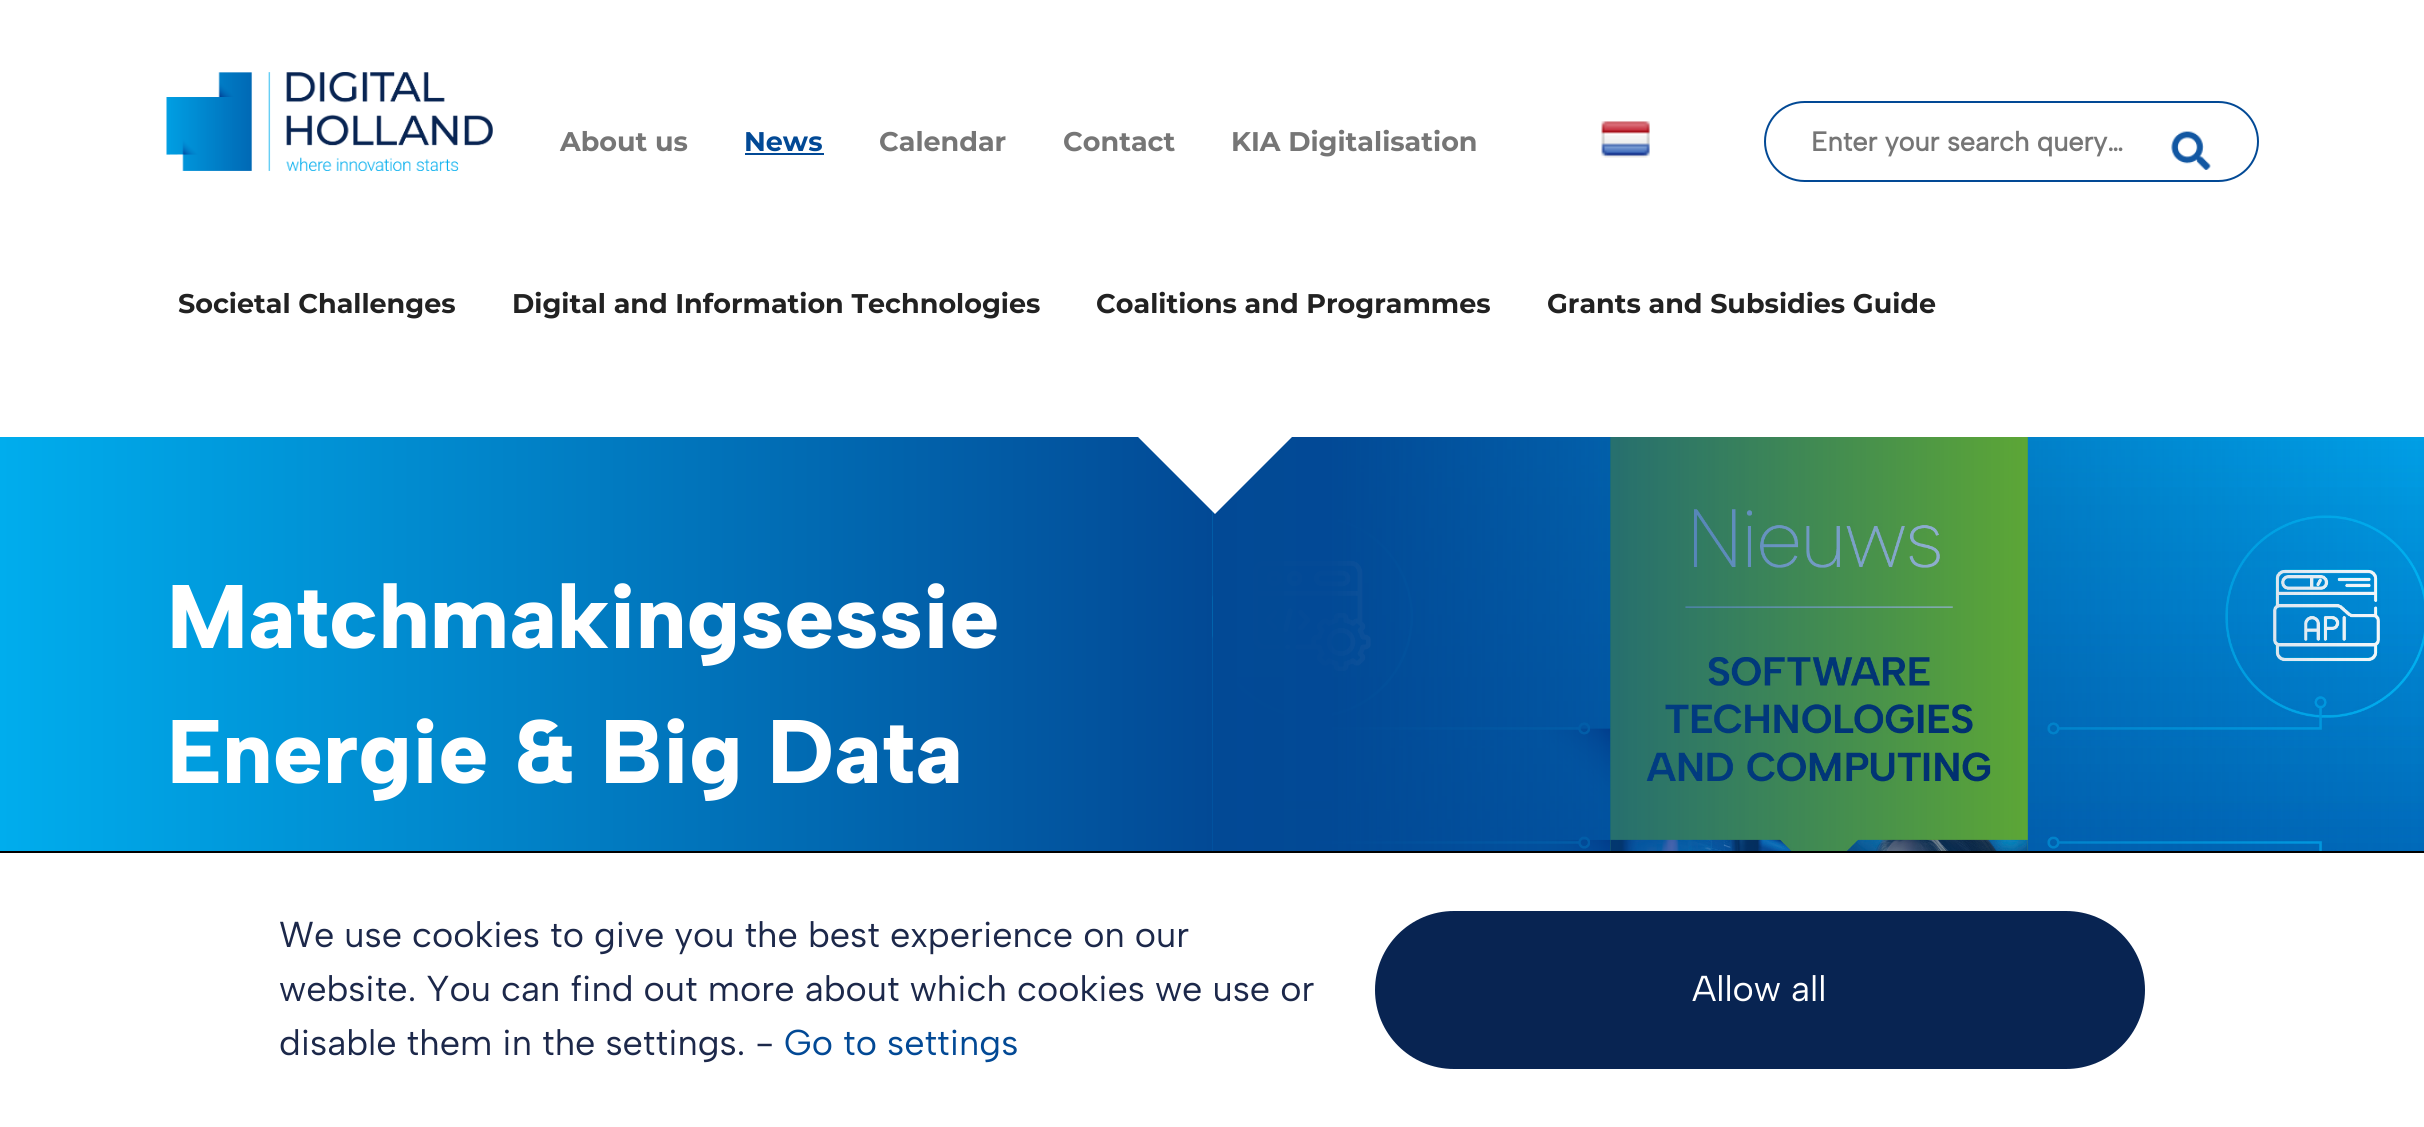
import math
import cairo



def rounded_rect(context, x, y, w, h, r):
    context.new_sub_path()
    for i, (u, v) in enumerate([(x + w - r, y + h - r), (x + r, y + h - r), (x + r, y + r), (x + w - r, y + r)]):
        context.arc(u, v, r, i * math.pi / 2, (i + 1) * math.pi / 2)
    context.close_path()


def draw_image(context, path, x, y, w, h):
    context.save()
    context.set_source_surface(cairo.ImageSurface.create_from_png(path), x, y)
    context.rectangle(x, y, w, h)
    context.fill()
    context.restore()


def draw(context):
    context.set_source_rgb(1, 1, 1)
    context.paint()
    draw_image(context, "images/1.png", 166, 72, 327, 99)
    context.set_source_rgb(2 / 255, 73 / 255, 149 / 255)
    context.rectangle(745, 153, 79, 2)
    context.fill()
    draw_image(context, "images/2.png", 1601, 121, 49, 37)
    rounded_rect(context, 1765, 102, 493, 79, 39.5)
    context.stroke()
    draw_image(context, "images/3.png", 2171, 131, 40, 39)
    gradient = cairo.LinearGradient(0, 812, 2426, 812)
    gradient.add_color_stop_rgba(0, 0, 173 / 255, 237 / 255, 1)
    gradient.add_color_stop_rgba(0.5, 2 / 255, 73 / 255, 149 / 255, 1)
    gradient.add_color_stop_rgba(1, 2 / 255, 73 / 255, 149 / 255, 1)
    context.set_source(gradient)
    context.rectangle(0, 437, 1213, 414)
    context.fill()
    draw_image(context, "images/4.png", 1212, 437, 1212, 414)
    context.set_source_rgb(1, 1, 1)
    context.new_path()
    context.move_to(1215, 355)
    context.line_to(1295, 434)
    context.line_to(1215, 514)
    context.line_to(1135, 434)
    context.close_path()
    context.fill()
    context.set_source_rgb(0, 0, 0)
    context.rectangle(0, 851, 2424, 2)
    context.fill()
    context.set_source_rgb(8 / 255, 36 / 255, 82 / 255)
    rounded_rect(context, 1374, 910, 772, 160, 80)
    context.fill_preserve()
    context.set_source_rgb(1, 1, 1)
    context.stroke()
    context.select_font_face("Montserrat", cairo.FontSlant.NORMAL, cairo.FontWeight.BOLD)
    context.set_font_size(27)
    context.set_source_rgb(118 / 255, 118 / 255, 118 / 255)
    context.move_to(560, 151)
    context.show_text("About us")
    context.set_source_rgb(2 / 255, 73 / 255, 149 / 255)
    context.move_to(744, 151)
    context.show_text("News")
    context.set_source_rgb(118 / 255, 118 / 255, 118 / 255)
    context.move_to(879, 151)
    context.show_text("Calendar")
    context.move_to(1063, 151)
    context.show_text("Contact")
    context.move_to(1231, 151)
    context.show_text("KIA Digitalisation")
    context.select_font_face("Albert Sans", cairo.FontSlant.NORMAL, cairo.FontWeight.BOLD)
    context.move_to(1811, 151)
    context.show_text("Enter your search query…")
    context.select_font_face("Montserrat", cairo.FontSlant.NORMAL, cairo.FontWeight.BOLD)
    context.set_source_rgb(34 / 255, 34 / 255, 34 / 255)
    context.move_to(178, 313)
    context.show_text("Societal Challenges")
    context.move_to(512, 313)
    context.show_text("Digital and Information Technologies")
    context.move_to(1096, 313)
    context.show_text("Coalitions and Programmes")
    context.move_to(1547, 313)
    context.show_text("Grants and Subsidies Guide")
    context.select_font_face("Albert Sans ExtraBold")
    context.set_font_size(90)
    context.set_source_rgb(1, 1, 1)
    context.move_to(167, 648)
    context.show_text("Matchmakingsessie")
    context.move_to(167, 783)
    context.show_text("Energie & Big Data")
    context.select_font_face("Albert Sans")
    context.set_font_size(36)
    context.set_source_rgb(28 / 255, 40 / 255, 74 / 255)
    context.move_to(279, 947)
    context.show_text("We use cookies to give you the best experience on our")
    context.move_to(279, 1001)
    context.show_text("website. You can find out more about which cookies we use or")
    context.move_to(279, 1055)
    context.show_text("disable them in the settings. -")
    context.set_source_rgb(2 / 255, 73 / 255, 149 / 255)
    context.move_to(784, 1055)
    context.show_text("Go to settings")
    context.set_source_rgb(1, 1, 1)
    context.move_to(1692, 1001)
    context.show_text("Allow all")


surface = cairo.ImageSurface(cairo.Format.RGB24, 2424, 1127)
context = cairo.Context(surface)
options = cairo.FontOptions()
options.set_hint_metrics(cairo.HintMetrics.OFF)
options.set_hint_style(cairo.HintStyle.NONE)
context.set_font_options(options)
context.set_miter_limit(4)
draw(context)
surface.write_to_png("out.png")
